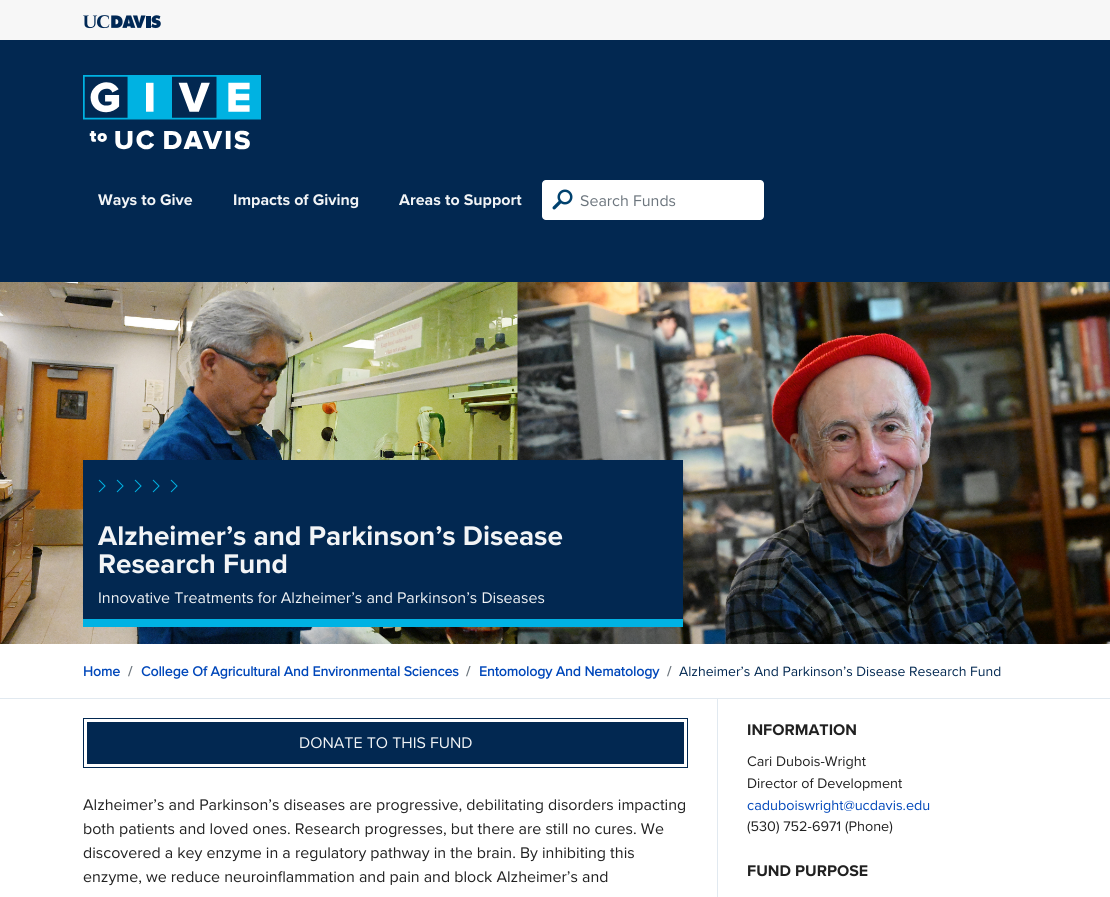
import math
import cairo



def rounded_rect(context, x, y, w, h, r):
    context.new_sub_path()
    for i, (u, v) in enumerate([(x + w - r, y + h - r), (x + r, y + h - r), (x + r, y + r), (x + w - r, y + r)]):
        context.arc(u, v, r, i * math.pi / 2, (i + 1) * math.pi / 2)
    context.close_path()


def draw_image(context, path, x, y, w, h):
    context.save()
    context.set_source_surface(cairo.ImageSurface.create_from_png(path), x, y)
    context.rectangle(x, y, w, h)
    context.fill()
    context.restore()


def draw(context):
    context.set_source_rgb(1, 1, 1)
    context.paint()
    context.set_source_rgb(247 / 255, 247 / 255, 247 / 255)
    context.rectangle(0, 0, 1110, 40)
    context.fill()
    draw_image(context, "images/1.png", 83, 15, 78, 14)
    context.set_source_rgb(2 / 255, 40 / 255, 81 / 255)
    context.rectangle(0, 40, 1110, 242)
    context.fill()
    draw_image(context, "images/2.png", 83, 75, 178, 75)
    context.set_source_rgb(1, 1, 1)
    rounded_rect(context, 542, 180, 222, 40, 4)
    context.fill()
    draw_image(context, "images/3.png", 552, 189, 21, 21)
    draw_image(context, "images/4.png", 0, 282, 1110, 362)
    context.set_source_rgb(2 / 255, 40 / 255, 81 / 255)
    context.rectangle(83, 460, 600, 159)
    context.fill()
    context.set_source_rgb(0, 178 / 255, 227 / 255)
    context.rectangle(83, 619, 600, 8)
    context.fill()
    context.new_path()
    context.move_to(117, 492)
    context.line_to(123, 486)
    context.line_to(117, 480)
    context.move_to(99, 492)
    context.line_to(105, 486)
    context.line_to(99, 480)
    context.move_to(135, 492)
    context.line_to(141, 486)
    context.line_to(135, 480)
    context.set_line_width(1)
    context.stroke()
    context.new_path()
    context.move_to(171, 492)
    context.line_to(177, 486)
    context.line_to(171, 480)
    context.move_to(153, 492)
    context.line_to(159, 486)
    context.line_to(153, 480)
    context.stroke()
    context.set_source_rgb(225 / 255, 233 / 255, 240 / 255)
    context.rectangle(0, 698, 1110, 1)
    context.fill()
    context.rectangle(83.5, 718.5, 604, 49)
    context.set_source_rgb(2 / 255, 40 / 255, 81 / 255)
    context.stroke()
    context.rectangle(87, 722, 597, 42)
    context.fill()
    context.set_source_rgb(225 / 255, 233 / 255, 240 / 255)
    context.rectangle(717, 699, 1, 198)
    context.fill()
    context.select_font_face("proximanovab", cairo.FontSlant.NORMAL, cairo.FontWeight.BOLD)
    context.set_font_size(16)
    context.set_source_rgb(242 / 255, 244 / 255, 246 / 255)
    context.move_to(98, 205)
    context.show_text("Ways to Give")
    context.move_to(233, 205)
    context.show_text("Impacts of Giving")
    context.move_to(399, 205)
    context.show_text("Areas to Support")
    context.select_font_face("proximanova")
    context.set_source_rgb(108 / 255, 117 / 255, 125 / 255)
    context.move_to(580, 206)
    context.show_text("Search Funds")
    context.select_font_face("proximanovab", cairo.FontSlant.NORMAL, cairo.FontWeight.BOLD)
    context.set_font_size(28)
    context.set_source_rgb(242 / 255, 244 / 255, 246 / 255)
    context.move_to(98, 545)
    context.show_text("Alzheimer’s and Parkinson’s Disease")
    context.move_to(98, 573)
    context.show_text("Research Fund")
    context.select_font_face("proximanova")
    context.set_font_size(16)
    context.move_to(98, 603)
    context.show_text("Innovative Treatments for Alzheimer’s and Parkinson’s Diseases")
    context.select_font_face("proximanova", cairo.FontSlant.NORMAL, cairo.FontWeight.BOLD)
    context.set_font_size(14)
    context.set_source_rgb(0, 71 / 255, 186 / 255)
    context.move_to(83, 676)
    context.show_text("Home")
    context.set_source_rgb(108 / 255, 117 / 255, 125 / 255)
    context.move_to(128, 676)
    context.show_text("/")
    context.set_source_rgb(0, 71 / 255, 186 / 255)
    context.move_to(141, 676)
    context.show_text("College Of Agricultural And Environmental Sciences")
    context.set_source_rgb(108 / 255, 117 / 255, 125 / 255)
    context.move_to(466, 676)
    context.show_text("/")
    context.set_source_rgb(0, 71 / 255, 186 / 255)
    context.move_to(479, 676)
    context.show_text("Entomology And Nematology")
    context.set_source_rgb(108 / 255, 117 / 255, 125 / 255)
    context.move_to(667, 676)
    context.show_text("/")
    context.select_font_face("proximanova")
    context.set_source_rgb(2 / 255, 40 / 255, 81 / 255)
    context.move_to(679, 676)
    context.show_text("Alzheimer’s And Parkinson’s Disease Research Fund")
    context.set_font_size(16)
    context.set_source_rgb(242 / 255, 244 / 255, 246 / 255)
    context.move_to(299, 748)
    context.show_text("DONATE TO THIS FUND")
    context.set_source_rgb(33 / 255, 33 / 255, 33 / 255)
    context.move_to(83, 810)
    context.show_text("Alzheimer’s and Parkinson’s diseases are progressive, debilitating disorders impacting")
    context.move_to(83, 834)
    context.show_text("both patients and loved ones. Research progresses, but there are still no cures. We")
    context.move_to(83, 858)
    context.show_text("discovered a key enzyme in a regulatory pathway in the brain. By inhibiting this")
    context.move_to(83, 882)
    context.show_text("enzyme, we reduce neuroinflammation and pain and block Alzheimer’s and")
    context.select_font_face("proximanovab", cairo.FontSlant.NORMAL, cairo.FontWeight.BOLD)
    context.move_to(747, 735)
    context.show_text("INFORMATION")
    context.select_font_face("proximanova")
    context.set_font_size(14.4)
    context.move_to(747, 766)
    context.show_text("Cari Dubois-Wright")
    context.move_to(747, 788)
    context.show_text("Director of Development")
    context.set_source_rgb(0, 71 / 255, 186 / 255)
    context.move_to(747, 810)
    context.show_text("caduboiswright@ucdavis.edu")
    context.set_source_rgb(33 / 255, 33 / 255, 33 / 255)
    context.move_to(747, 831)
    context.show_text("(530) 752-6971 (Phone)")
    context.select_font_face("proximanovab", cairo.FontSlant.NORMAL, cairo.FontWeight.BOLD)
    context.set_font_size(16)
    context.move_to(747, 876)
    context.show_text("FUND PURPOSE")


surface = cairo.ImageSurface(cairo.Format.RGB24, 1110, 897)
context = cairo.Context(surface)
options = cairo.FontOptions()
options.set_hint_metrics(cairo.HintMetrics.OFF)
options.set_hint_style(cairo.HintStyle.NONE)
context.set_font_options(options)
context.set_miter_limit(4)
draw(context)
surface.write_to_png("out.png")
